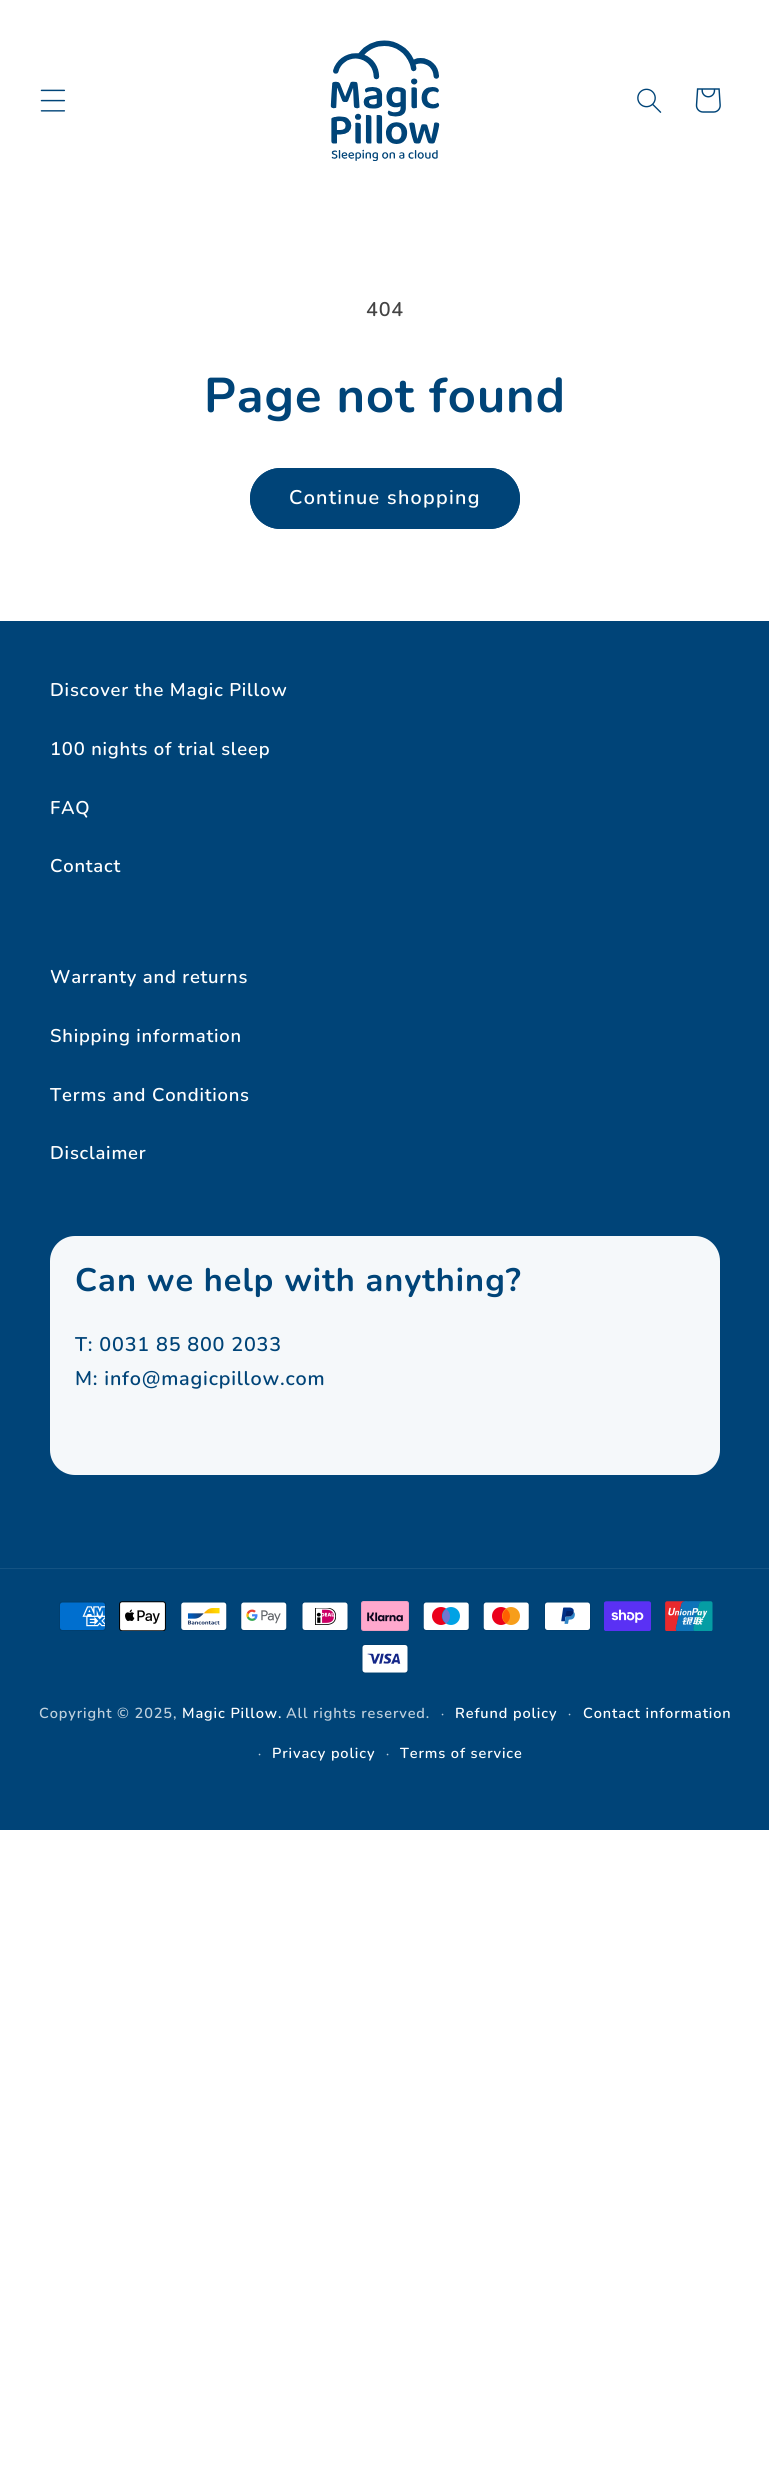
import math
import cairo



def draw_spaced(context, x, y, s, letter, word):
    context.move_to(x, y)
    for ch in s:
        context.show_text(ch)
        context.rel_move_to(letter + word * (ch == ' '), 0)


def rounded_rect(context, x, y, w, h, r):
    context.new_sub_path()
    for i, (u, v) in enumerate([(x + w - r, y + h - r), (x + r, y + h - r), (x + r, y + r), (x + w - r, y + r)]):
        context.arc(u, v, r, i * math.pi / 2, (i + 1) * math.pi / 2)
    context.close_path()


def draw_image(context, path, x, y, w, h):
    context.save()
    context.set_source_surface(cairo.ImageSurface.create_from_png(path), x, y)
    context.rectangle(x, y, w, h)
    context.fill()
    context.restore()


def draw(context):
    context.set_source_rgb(1, 1, 1)
    context.paint()
    draw_image(context, "images/1.png", 40, 89, 26, 23)
    draw_image(context, "images/2.png", 330, 40, 110, 121)
    draw_image(context, "images/3.png", 637, 88, 25, 25)
    draw_image(context, "images/4.png", 695, 88, 26, 25)
    context.set_source_rgb(0, 68 / 255, 120 / 255)
    rounded_rect(context, 250, 468, 270, 61, 30.5)
    context.fill()
    rounded_rect(context, 250.5, 468.5, 269, 60, 30)
    context.set_line_width(1)
    context.stroke()
    context.rectangle(0, 621, 769, 1209)
    context.fill()
    context.set_source_rgb(245 / 255, 248 / 255, 250 / 255)
    rounded_rect(context, 50, 1236, 670, 239, 25)
    context.fill()
    context.set_source_rgb(20 / 255, 83 / 255, 131 / 255)
    context.rectangle(0, 1568, 769, 1)
    context.fill()
    draw_image(context, "images/5.png", 59, 1601, 47, 30)
    draw_image(context, "images/6.png", 119, 1601, 47, 30)
    draw_image(context, "images/7.png", 180, 1601, 48, 30)
    draw_image(context, "images/8.png", 240, 1601, 48, 30)
    draw_image(context, "images/9.png", 301, 1601, 48, 30)
    draw_image(context, "images/10.png", 361, 1601, 48, 30)
    draw_image(context, "images/11.png", 423, 1601, 47, 30)
    draw_image(context, "images/12.png", 483, 1601, 47, 30)
    draw_image(context, "images/13.png", 544, 1601, 47, 30)
    draw_image(context, "images/14.png", 604, 1601, 47, 30)
    draw_image(context, "images/15.png", 665, 1601, 48, 30)
    draw_image(context, "images/16.png", 361, 1644, 48, 30)
    context.select_font_face("Nunito SemiBold")
    context.set_font_size(19.75)
    context.set_source_rgb(68 / 255, 68 / 255, 68 / 255)
    draw_spaced(context, 366, 316, "404", 0.8, 0)
    context.select_font_face("Nunito", cairo.FontSlant.NORMAL, cairo.FontWeight.BOLD)
    context.set_font_size(48.75)
    context.set_source_rgb(0, 68 / 255, 120 / 255)
    draw_spaced(context, 204, 412, "Page not found", 1, 0)
    context.select_font_face("Nunito SemiBold")
    context.set_font_size(19.75)
    context.set_source_rgb(1, 1, 1)
    draw_spaced(context, 289, 504, "Continue shopping", 1.3, 0)
    context.set_font_size(18.4)
    draw_spaced(context, 50, 696, "Discover the Magic Pillow", 0.8, 0)
    draw_spaced(context, 50, 755, "100 nights of trial sleep", 0.8, 0)
    draw_spaced(context, 50, 814, "FAQ", 0.8, 0)
    draw_spaced(context, 50, 872, "Contact", 0.8, 0)
    draw_spaced(context, 50, 983, "Warranty and returns", 0.8, 0)
    draw_spaced(context, 50, 1042, "Shipping information", 0.8, 0)
    draw_spaced(context, 50, 1101, "Terms and Conditions", 0.8, 0)
    draw_spaced(context, 50, 1159, "Disclaimer", 0.8, 0)
    context.select_font_face("Nunito", cairo.FontSlant.NORMAL, cairo.FontWeight.BOLD)
    context.set_font_size(32.5)
    context.set_source_rgb(0, 68 / 255, 120 / 255)
    draw_spaced(context, 75, 1291, "Can we help with anything?", 1, 0)
    context.select_font_face("Nunito SemiBold")
    context.set_font_size(19.75)
    draw_spaced(context, 75, 1351, "T: 0031 85 800 2033", 0.8, 0)
    draw_spaced(context, 75, 1385, "M: info@magicpillow.com", 0.8, 0)
    context.set_font_size(14.5)
    context.set_source_rgb(191 / 255, 208 / 255, 221 / 255)
    draw_spaced(context, 39, 1718, "Copyright © 2025,", 0.9, 0)
    context.set_source_rgb(1, 1, 1)
    draw_spaced(context, 182, 1718, "Magic Pillow.", 0.9, 0)
    context.set_font_size(13)
    context.set_source_rgb(191 / 255, 208 / 255, 221 / 255)
    draw_spaced(context, 441, 1718, "·", 0.9, 0)
    context.set_font_size(14.5)
    context.set_source_rgb(1, 1, 1)
    draw_spaced(context, 455, 1718, "Refund policy", 0.9, 0)
    context.set_font_size(13)
    context.set_source_rgb(191 / 255, 208 / 255, 221 / 255)
    draw_spaced(context, 568, 1718, "·", 0.9, 0)
    context.set_font_size(14.5)
    context.set_source_rgb(1, 1, 1)
    draw_spaced(context, 583, 1718, "Contact information", 0.9, 0)
    context.set_font_size(13)
    context.set_source_rgb(191 / 255, 208 / 255, 221 / 255)
    draw_spaced(context, 258, 1758, "·", 0.9, 0)
    context.set_font_size(14.5)
    context.set_source_rgb(1, 1, 1)
    draw_spaced(context, 272, 1758, "Privacy policy", 0.9, 0)
    context.set_font_size(13)
    context.set_source_rgb(191 / 255, 208 / 255, 221 / 255)
    draw_spaced(context, 386, 1758, "·", 0.9, 0)
    context.set_font_size(14.5)
    context.set_source_rgb(1, 1, 1)
    draw_spaced(context, 400, 1758, "Terms of service", 0.9, 0)
    context.set_source_rgb(191 / 255, 208 / 255, 221 / 255)
    draw_spaced(context, 286, 1718, "All rights reserved.", 0.9, 0)


surface = cairo.ImageSurface(cairo.Format.RGB24, 769, 2490)
context = cairo.Context(surface)
options = cairo.FontOptions()
options.set_hint_metrics(cairo.HintMetrics.OFF)
options.set_hint_style(cairo.HintStyle.NONE)
context.set_font_options(options)
context.set_miter_limit(4)
draw(context)
surface.write_to_png("out.png")
